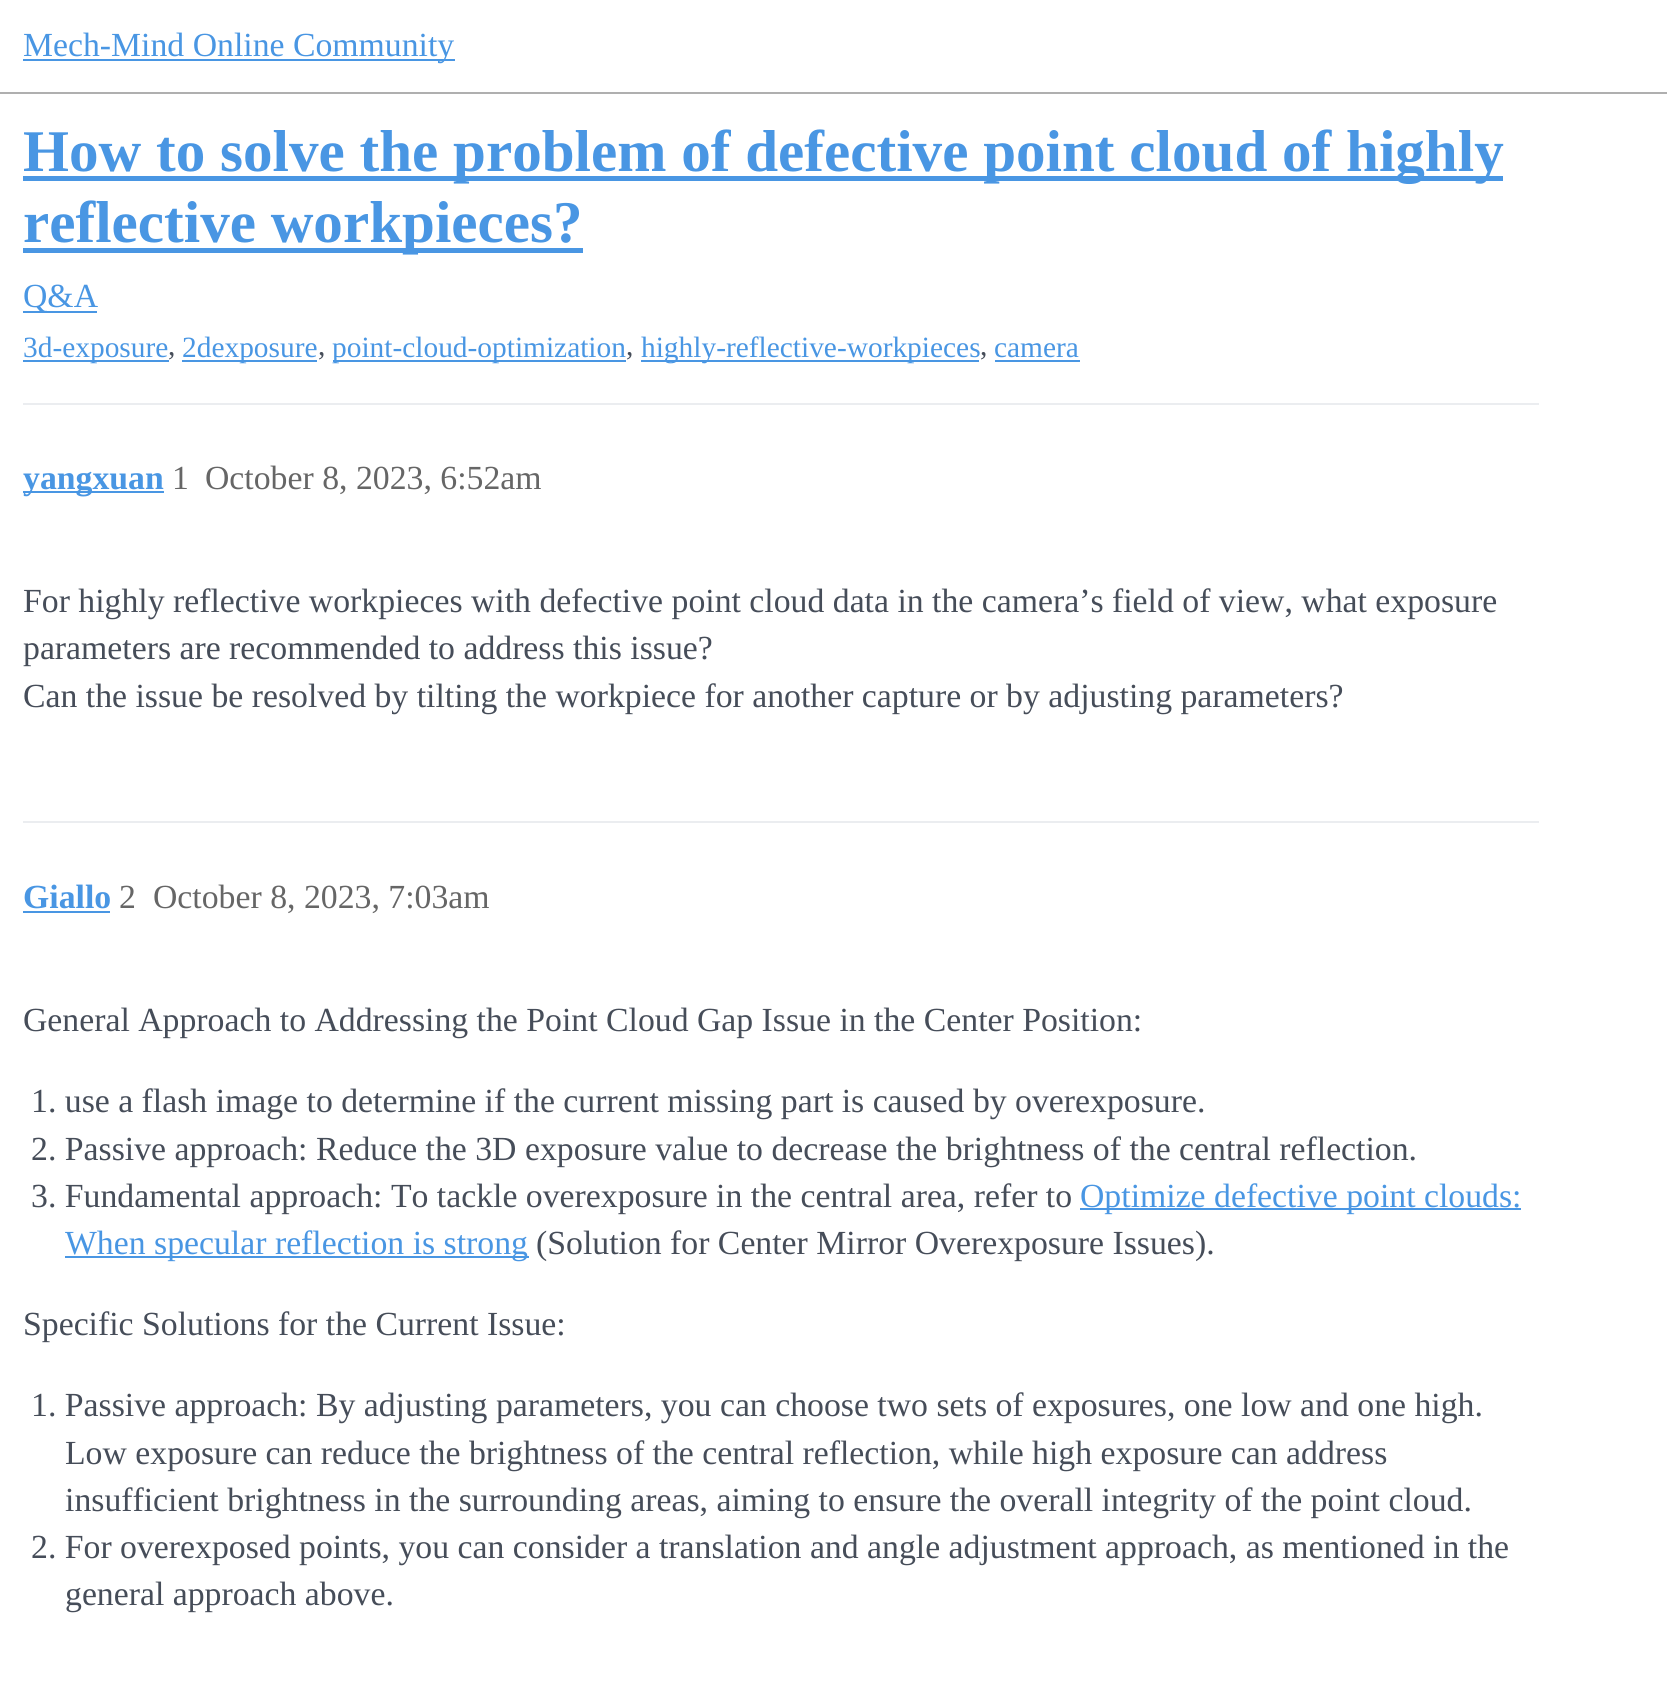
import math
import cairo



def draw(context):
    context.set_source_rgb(1, 1, 1)
    context.paint()
    context.set_source_rgb(175 / 255, 175 / 255, 175 / 255)
    context.rectangle(0, 92, 1667, 2)
    context.fill()
    context.set_source_rgb(73 / 255, 150 / 255, 227 / 255)
    context.rectangle(23, 59, 432, 2)
    context.fill()
    context.rectangle(23, 176, 1480, 5)
    context.fill()
    context.rectangle(23, 248, 560, 5)
    context.fill()
    context.rectangle(23, 311, 74, 2)
    context.fill()
    context.rectangle(23, 360, 146, 2)
    context.fill()
    context.rectangle(182, 360, 135, 2)
    context.fill()
    context.rectangle(333, 360, 293, 2)
    context.fill()
    context.rectangle(641, 360, 338, 2)
    context.fill()
    context.rectangle(995, 360, 85, 2)
    context.fill()
    context.set_source_rgb(235 / 255, 237 / 255, 240 / 255)
    context.rectangle(23, 403, 1516, 2)
    context.fill()
    context.set_source_rgb(73 / 255, 150 / 255, 227 / 255)
    context.rectangle(23, 491, 141, 2)
    context.fill()
    context.set_source_rgb(235 / 255, 237 / 255, 240 / 255)
    context.rectangle(23, 821, 1516, 2)
    context.fill()
    context.set_source_rgb(73 / 255, 150 / 255, 227 / 255)
    context.rectangle(23, 911, 87, 2)
    context.fill()
    context.rectangle(1080, 1208, 441, 2)
    context.fill()
    context.rectangle(65, 1256, 464, 2)
    context.fill()
    context.select_font_face("Liberation Serif")
    context.set_font_size(33.75)
    context.move_to(23, 56)
    context.show_text("Mech-Mind Online Community")
    context.select_font_face("Liberation Serif", cairo.FontSlant.NORMAL, cairo.FontWeight.BOLD)
    context.set_font_size(59.1)
    context.move_to(23, 171)
    context.show_text("How to solve the problem of defective point cloud of highly")
    context.move_to(23, 242)
    context.show_text("reflective workpieces?")
    context.select_font_face("Liberation Serif")
    context.set_font_size(33.75)
    context.move_to(23, 307)
    context.show_text("Q&A")
    context.set_font_size(29.4)
    context.move_to(23, 357)
    context.show_text("3d-exposure")
    context.set_source_rgb(70 / 255, 77 / 255, 89 / 255)
    context.move_to(168, 355)
    context.show_text(",")
    context.set_source_rgb(73 / 255, 150 / 255, 227 / 255)
    context.move_to(182, 357)
    context.show_text("2dexposure")
    context.set_source_rgb(70 / 255, 77 / 255, 89 / 255)
    context.move_to(318, 355)
    context.show_text(",")
    context.set_source_rgb(73 / 255, 150 / 255, 227 / 255)
    context.move_to(332, 357)
    context.show_text("point-cloud-optimization")
    context.set_source_rgb(70 / 255, 77 / 255, 89 / 255)
    context.move_to(626, 355)
    context.show_text(",")
    context.set_source_rgb(73 / 255, 150 / 255, 227 / 255)
    context.move_to(641, 357)
    context.show_text("highly-reflective-workpieces")
    context.set_source_rgb(70 / 255, 77 / 255, 89 / 255)
    context.move_to(980, 355)
    context.show_text(",")
    context.set_source_rgb(73 / 255, 150 / 255, 227 / 255)
    context.move_to(994, 357)
    context.show_text("camera")
    context.select_font_face("Liberation Serif", cairo.FontSlant.NORMAL, cairo.FontWeight.BOLD)
    context.set_font_size(33.75)
    context.move_to(23, 489)
    context.show_text("yangxuan")
    context.select_font_face("Liberation Serif")
    context.set_source_rgb(102 / 255, 102 / 255, 102 / 255)
    context.move_to(172, 489)
    context.show_text("1")
    context.move_to(205, 489)
    context.show_text("October 8, 2023, 6:52am")
    context.set_source_rgb(70 / 255, 77 / 255, 89 / 255)
    context.move_to(23, 612)
    context.show_text("For highly reflective workpieces with defective point cloud data in the camera’s field of view, what exposure")
    context.move_to(23, 659)
    context.show_text("parameters are recommended to address this issue?")
    context.move_to(23, 707)
    context.show_text("Can the issue be resolved by tilting the workpiece for another capture or by adjusting parameters?")
    context.select_font_face("Liberation Serif", cairo.FontSlant.NORMAL, cairo.FontWeight.BOLD)
    context.set_source_rgb(73 / 255, 150 / 255, 227 / 255)
    context.move_to(23, 908)
    context.show_text("Giallo")
    context.select_font_face("Liberation Serif")
    context.set_source_rgb(102 / 255, 102 / 255, 102 / 255)
    context.move_to(119, 908)
    context.show_text("2")
    context.move_to(153, 908)
    context.show_text("October 8, 2023, 7:03am")
    context.set_source_rgb(70 / 255, 77 / 255, 89 / 255)
    context.move_to(23, 1031)
    context.show_text("General Approach to Addressing the Point Cloud Gap Issue in the Center Position:")
    context.move_to(31, 1112)
    context.show_text("1. use a flash image to determine if the current missing part is caused by overexposure.")
    context.move_to(31, 1160)
    context.show_text("2. Passive approach: Reduce the 3D exposure value to decrease the brightness of the central reflection.")
    context.move_to(31, 1207)
    context.show_text("3. Fundamental approach: To tackle overexposure in the central area, refer to")
    context.set_source_rgb(73 / 255, 150 / 255, 227 / 255)
    context.move_to(1080, 1207)
    context.show_text("Optimize defective point clouds:")
    context.move_to(65, 1254)
    context.show_text("When specular reflection is strong")
    context.set_source_rgb(70 / 255, 77 / 255, 89 / 255)
    context.move_to(536, 1254)
    context.show_text("(Solution for Center Mirror Overexposure Issues).")
    context.move_to(23, 1335)
    context.show_text("Specific Solutions for the Current Issue:")
    context.move_to(31, 1416)
    context.show_text("1. Passive approach: By adjusting parameters, you can choose two sets of exposures, one low and one high.")
    context.move_to(65, 1464)
    context.show_text("Low exposure can reduce the brightness of the central reflection, while high exposure can address")
    context.move_to(65, 1511)
    context.show_text("insufficient brightness in the surrounding areas, aiming to ensure the overall integrity of the point cloud.")
    context.move_to(31, 1558)
    context.show_text("2. For overexposed points, you can consider a translation and angle adjustment approach, as mentioned in the")
    context.move_to(65, 1605)
    context.show_text("general approach above.")


surface = cairo.ImageSurface(cairo.Format.RGB24, 1667, 1696)
context = cairo.Context(surface)
options = cairo.FontOptions()
options.set_hint_metrics(cairo.HintMetrics.OFF)
options.set_hint_style(cairo.HintStyle.NONE)
context.set_font_options(options)
context.set_miter_limit(4)
draw(context)
surface.write_to_png("out.png")
